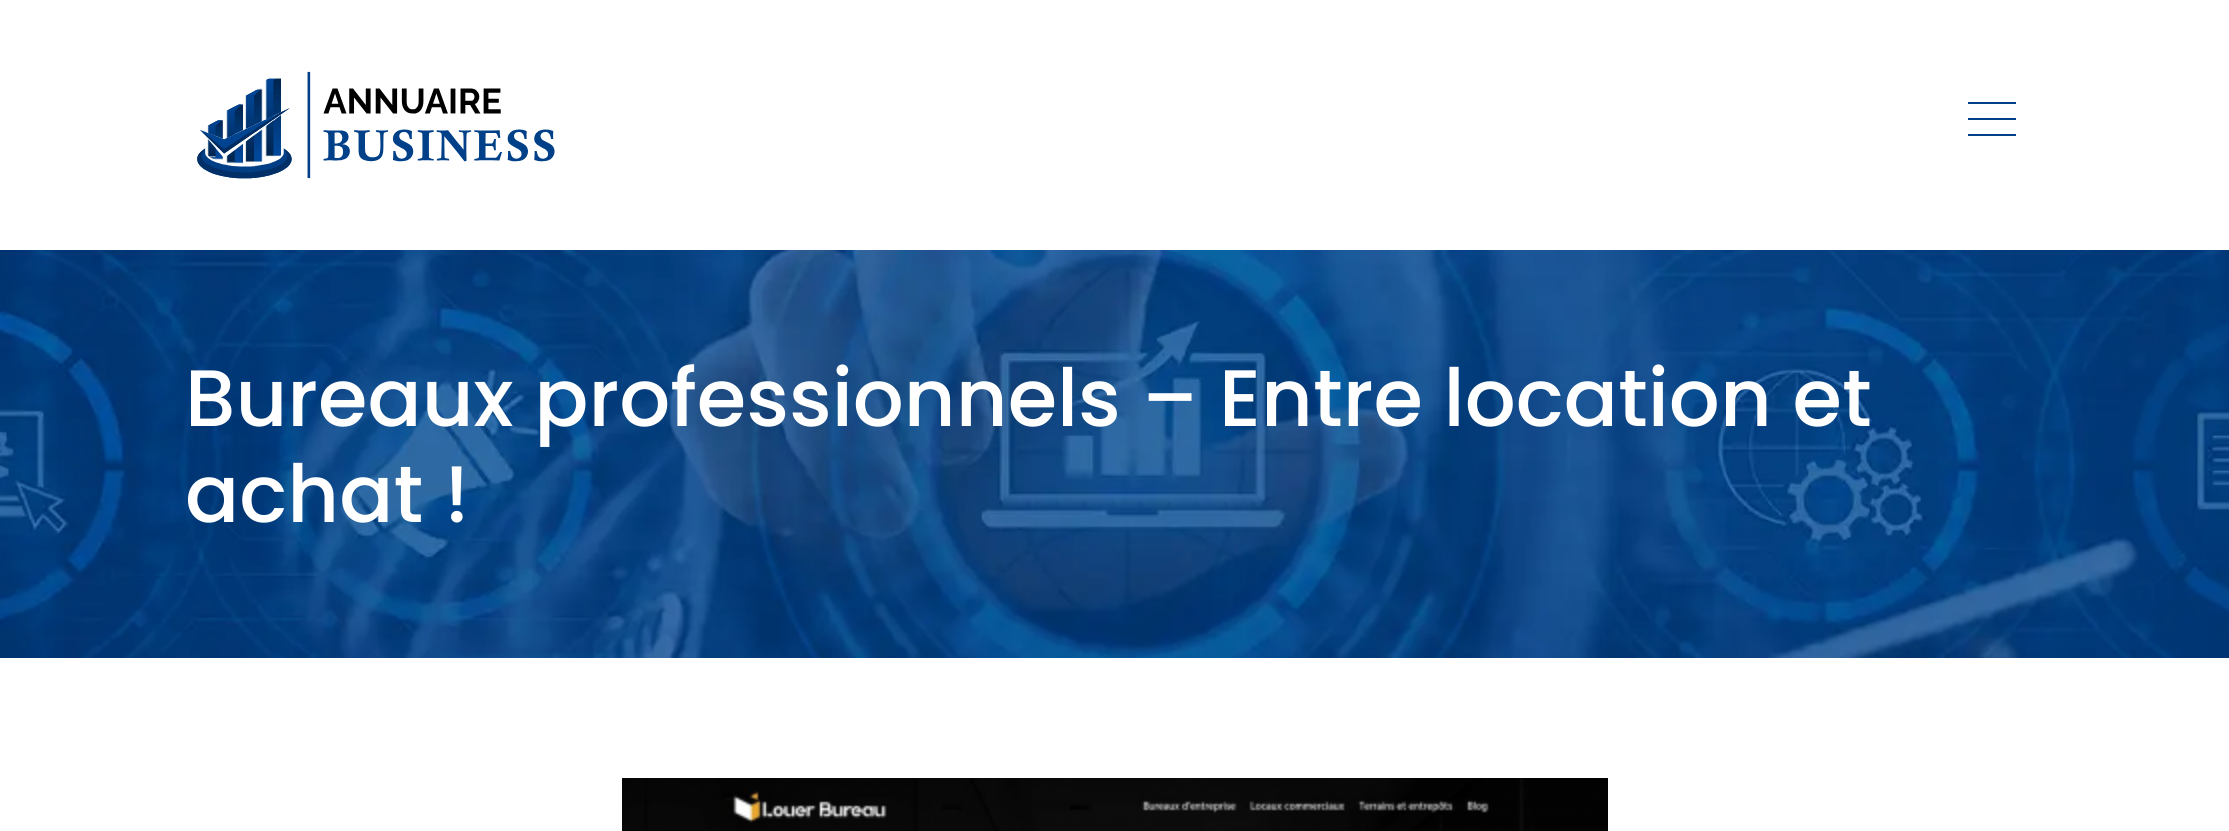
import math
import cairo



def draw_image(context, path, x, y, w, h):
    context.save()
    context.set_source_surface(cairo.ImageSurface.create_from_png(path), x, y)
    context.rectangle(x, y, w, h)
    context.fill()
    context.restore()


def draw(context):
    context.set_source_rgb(1, 1, 1)
    context.paint()
    draw_image(context, "images/1.png", 197, 71, 358, 108)
    context.set_source_rgb(0, 64 / 255, 136 / 255)
    context.rectangle(1968, 102, 48, 2)
    context.fill()
    context.rectangle(1968, 118, 48, 2)
    context.fill()
    context.rectangle(1968, 134, 48, 2)
    context.fill()
    draw_image(context, "images/2.png", 0, 250, 2229, 408)
    draw_image(context, "images/3.png", 622, 778, 986, 53)
    context.select_font_face("Poppins Medium")
    context.set_font_size(80)
    context.set_source_rgb(1, 1, 1)
    context.move_to(185, 426)
    context.show_text("Bureaux professionnels – Entre location et")
    context.move_to(185, 522)
    context.show_text("achat !")


surface = cairo.ImageSurface(cairo.Format.RGB24, 2229, 831)
context = cairo.Context(surface)
options = cairo.FontOptions()
options.set_hint_metrics(cairo.HintMetrics.OFF)
options.set_hint_style(cairo.HintStyle.NONE)
context.set_font_options(options)
context.set_miter_limit(4)
draw(context)
surface.write_to_png("out.png")
